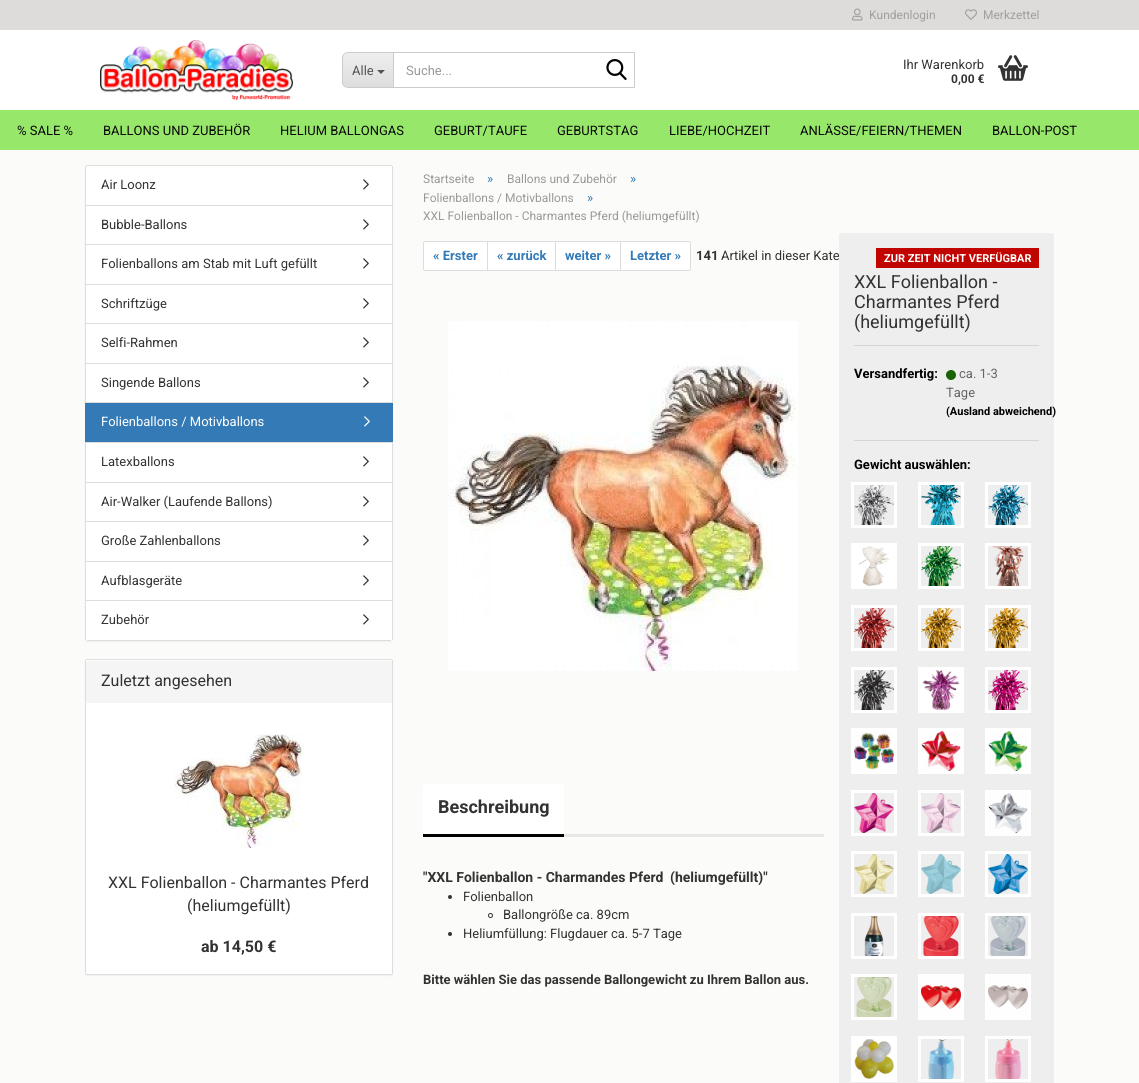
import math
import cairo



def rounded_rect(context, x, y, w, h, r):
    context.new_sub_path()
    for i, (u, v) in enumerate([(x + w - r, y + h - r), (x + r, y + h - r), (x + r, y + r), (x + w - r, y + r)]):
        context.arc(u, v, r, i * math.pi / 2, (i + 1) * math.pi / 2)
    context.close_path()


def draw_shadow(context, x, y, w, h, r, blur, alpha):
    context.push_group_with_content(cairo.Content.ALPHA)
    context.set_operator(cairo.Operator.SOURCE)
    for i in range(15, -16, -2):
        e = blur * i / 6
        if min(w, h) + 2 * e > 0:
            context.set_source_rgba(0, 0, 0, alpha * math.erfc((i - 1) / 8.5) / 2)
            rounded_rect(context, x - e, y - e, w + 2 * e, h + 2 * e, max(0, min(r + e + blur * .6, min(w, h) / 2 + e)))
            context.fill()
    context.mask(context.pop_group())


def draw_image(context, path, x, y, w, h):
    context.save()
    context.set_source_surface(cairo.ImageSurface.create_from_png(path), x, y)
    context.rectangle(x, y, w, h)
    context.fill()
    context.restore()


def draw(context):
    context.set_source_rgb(1, 1, 1)
    context.paint()
    context.set_source_rgb(251 / 255, 251 / 255, 249 / 255)
    context.rectangle(0, 150, 1139, 933)
    context.fill()
    context.set_source_rgb(222 / 255, 219 / 255, 219 / 255)
    context.rectangle(0, 0, 1139, 30)
    context.fill()
    draw_image(context, "images/1.png", 852, 8, 11, 13)
    draw_image(context, "images/2.png", 965, 9, 12, 11)
    draw_image(context, "images/3.png", 100, 40, 194, 60)
    context.save()
    context.new_path()
    context.move_to(348, 52)
    context.line_to(393, 52)
    context.line_to(393, 88)
    context.line_to(348, 88)
    context.curve_to(344.5, 88, 342, 85.5, 342, 82)
    context.line_to(342, 58)
    context.curve_to(342, 54.5, 344.5, 52, 348, 52)
    context.close_path()
    context.clip()
    gradient = cairo.LinearGradient(368, 53, 368, 87)
    gradient.add_color_stop_rgba(0, 238 / 255, 238 / 255, 238 / 255, 1)
    gradient.add_color_stop_rgba(1, 222 / 255, 222 / 255, 222 / 255, 1)
    context.set_source(gradient)
    context.rectangle(342, 53, 51, 34)
    context.fill()
    context.restore()
    context.set_source_rgb(204 / 255, 204 / 255, 204 / 255)
    context.set_fill_rule(cairo.FillRule.EVEN_ODD)
    context.new_path()
    context.move_to(348, 52)
    context.line_to(393, 52)
    context.line_to(393, 88)
    context.line_to(348, 88)
    context.curve_to(345, 88, 342, 85, 342, 82)
    context.line_to(342, 58)
    context.curve_to(342, 55, 345, 52, 348, 52)
    context.close_path()
    context.move_to(348, 53)
    context.line_to(393, 53)
    context.line_to(393, 87)
    context.line_to(348, 87)
    context.curve_to(345, 87, 343, 85, 343, 82)
    context.line_to(343, 58)
    context.curve_to(343, 55, 345, 53, 348, 53)
    context.close_path()
    context.fill()
    context.set_source_rgb(85 / 255, 85 / 255, 85 / 255)
    context.set_fill_rule(cairo.FillRule.WINDING)
    context.new_path()
    context.move_to(377, 70)
    context.line_to(385, 70)
    context.line_to(381, 74)
    context.close_path()
    context.fill()
    context.rectangle(393.5, 52.5, 241, 35)
    context.set_source_rgb(204 / 255, 204 / 255, 204 / 255)
    context.set_line_width(1)
    context.stroke()
    draw_image(context, "images/4.png", 606, 59, 21, 21)
    draw_image(context, "images/5.png", 998, 55, 30, 26)
    context.set_source_rgb(151 / 255, 232 / 255, 106 / 255)
    context.rectangle(0, 110, 1139, 40)
    context.fill()
    context.set_source_rgb(0, 0, 0)
    draw_shadow(context, 85, 166, 308, 476, 2, 0.5, 0.05)
    context.set_source_rgb(1, 1, 1)
    rounded_rect(context, 85, 165, 308, 476, 2)
    context.fill()
    context.set_source_rgb(221 / 255, 221 / 255, 221 / 255)
    context.rectangle(86, 165, 306, 1)
    context.fill()
    context.rectangle(392, 166, 1, 474)
    context.fill()
    context.rectangle(85, 166, 1, 474)
    context.fill()
    context.rectangle(86, 205, 306, 1)
    context.fill()
    draw_image(context, "images/6.png", 363, 179, 6, 11)
    context.rectangle(86, 244, 306, 1)
    context.fill()
    draw_image(context, "images/6.png", 363, 219, 6, 11)
    context.rectangle(86, 284, 306, 1)
    context.fill()
    draw_image(context, "images/6.png", 363, 258, 6, 11)
    context.rectangle(86, 323, 306, 1)
    context.fill()
    draw_image(context, "images/6.png", 363, 298, 6, 11)
    context.rectangle(86, 363, 306, 1)
    context.fill()
    draw_image(context, "images/6.png", 363, 337, 6, 11)
    context.rectangle(86, 402, 306, 1)
    context.fill()
    draw_image(context, "images/6.png", 363, 377, 6, 11)
    context.rectangle(86, 442, 306, 1)
    context.fill()
    context.set_source_rgb(51 / 255, 122 / 255, 183 / 255)
    context.rectangle(85, 403, 308, 39)
    context.fill()
    draw_image(context, "images/7.png", 364, 416, 6, 11)
    context.set_source_rgb(221 / 255, 221 / 255, 221 / 255)
    context.rectangle(86, 482, 306, 1)
    context.fill()
    draw_image(context, "images/6.png", 363, 456, 6, 11)
    context.rectangle(86, 521, 306, 1)
    context.fill()
    draw_image(context, "images/6.png", 363, 496, 6, 11)
    context.rectangle(86, 561, 306, 1)
    context.fill()
    draw_image(context, "images/6.png", 363, 535, 6, 11)
    context.rectangle(86, 600, 306, 1)
    context.fill()
    draw_image(context, "images/6.png", 363, 575, 6, 11)
    context.rectangle(87, 640, 304, 1)
    context.fill()
    draw_image(context, "images/6.png", 363, 614, 6, 11)
    context.set_source_rgb(0, 0, 0)
    draw_shadow(context, 85, 660, 308, 316, 2, 0.5, 0.05)
    context.set_source_rgb(1, 1, 1)
    rounded_rect(context, 85.5, 659.5, 307, 315, 1.5)
    context.fill_preserve()
    context.set_source_rgb(221 / 255, 221 / 255, 221 / 255)
    context.stroke()
    context.set_source_rgb(245 / 255, 245 / 255, 245 / 255)
    context.new_path()
    context.move_to(87, 660)
    context.line_to(391, 660)
    context.curve_to(391.5, 660, 392, 660.5, 392, 661)
    context.line_to(392, 703)
    context.line_to(86, 703)
    context.line_to(86, 661)
    context.curve_to(86, 660.5, 86.5, 660, 87, 660)
    context.close_path()
    context.fill()
    context.set_source_rgb(1, 1, 1)
    context.new_path()
    context.move_to(87, 661)
    context.line_to(391, 661)
    context.curve_to(392, 661, 392, 661, 392, 662)
    context.curve_to(392, 661, 392, 660, 391, 660)
    context.line_to(87, 660)
    context.line_to(86, 660)
    context.line_to(86, 662)
    context.close_path()
    context.fill()
    draw_image(context, "images/8.png", 174, 734, 130, 114)
    context.new_path()
    context.move_to(425, 241.5)
    context.line_to(487.5, 241.5)
    context.line_to(487.5, 270.5)
    context.line_to(425, 270.5)
    context.curve_to(424, 270.5, 423.5, 270, 423.5, 269)
    context.line_to(423.5, 243)
    context.curve_to(423.5, 242, 424, 241.5, 425, 241.5)
    context.close_path()
    context.fill_preserve()
    context.set_source_rgb(221 / 255, 221 / 255, 221 / 255)
    context.stroke()
    context.set_source_rgb(1, 1, 1)
    context.rectangle(487.5, 241.5, 68, 29)
    context.fill_preserve()
    context.set_source_rgb(221 / 255, 221 / 255, 221 / 255)
    context.stroke()
    context.set_source_rgb(1, 1, 1)
    context.rectangle(555.5, 241.5, 65, 29)
    context.fill_preserve()
    context.set_source_rgb(221 / 255, 221 / 255, 221 / 255)
    context.stroke()
    context.set_source_rgb(1, 1, 1)
    context.new_path()
    context.move_to(620.5, 241.5)
    context.line_to(689, 241.5)
    context.curve_to(690, 241.5, 690.5, 242, 690.5, 243)
    context.line_to(690.5, 269)
    context.curve_to(690.5, 270, 690, 270.5, 689, 270.5)
    context.line_to(620.5, 270.5)
    context.close_path()
    context.fill_preserve()
    context.set_source_rgb(221 / 255, 221 / 255, 221 / 255)
    context.stroke()
    draw_image(context, "images/9.png", 448, 321, 350, 350)
    context.set_source_rgb(231 / 255, 231 / 255, 231 / 255)
    context.rectangle(564, 834, 260, 3)
    context.fill()
    context.set_source_rgb(0, 0, 0)
    context.rectangle(423, 834, 141, 3)
    context.fill()
    context.set_source_rgb(1, 1, 1)
    context.new_path()
    context.move_to(425, 784)
    context.line_to(562, 784)
    context.curve_to(563, 784, 564, 785, 564, 786)
    context.line_to(564, 834)
    context.line_to(423, 834)
    context.line_to(423, 786)
    context.curve_to(423, 785, 424, 784, 425, 784)
    context.close_path()
    context.fill()
    context.set_source_rgb(51 / 255, 51 / 255, 51 / 255)
    context.arc(450, 897, 2, 0, 2 * math.pi)
    context.fill()
    context.arc(490.5, 915.5, 2, 0, 2 * math.pi)
    context.stroke()
    context.arc(450, 934, 2, 0, 2 * math.pi)
    context.fill()
    context.select_font_face("Roboto")
    context.set_font_size(12)
    context.set_source_rgb(159 / 255, 159 / 255, 159 / 255)
    context.move_to(869, 19)
    context.show_text("Kundenlogin")
    context.move_to(983, 19)
    context.show_text("Merkzettel")
    context.set_font_size(13)
    context.set_source_rgb(85 / 255, 85 / 255, 85 / 255)
    context.move_to(352, 75)
    context.show_text("Alle")
    context.set_source_rgb(153 / 255, 153 / 255, 153 / 255)
    context.move_to(406, 75)
    context.show_text("Suche...")
    context.set_source_rgb(51 / 255, 51 / 255, 51 / 255)
    context.move_to(903, 69)
    context.show_text("Ihr Warenkorb")
    context.select_font_face("Roboto", cairo.FontSlant.NORMAL, cairo.FontWeight.BOLD)
    context.set_font_size(12)
    context.move_to(951, 83)
    context.show_text("0,00 €")
    context.select_font_face("Roboto")
    context.set_font_size(13)
    context.set_source_rgb(8 / 255, 8 / 255, 8 / 255)
    context.move_to(17, 135)
    context.show_text("% SALE %")
    context.move_to(103, 135)
    context.show_text("BALLONS UND ZUBEHÖR")
    context.move_to(280, 135)
    context.show_text("HELIUM BALLONGAS")
    context.move_to(434, 135)
    context.show_text("GEBURT/TAUFE")
    context.move_to(557, 135)
    context.show_text("GEBURTSTAG")
    context.move_to(669, 135)
    context.show_text("LIEBE/HOCHZEIT")
    context.move_to(800, 135)
    context.show_text("ANLÄSSE/FEIERN/THEMEN")
    context.move_to(992, 135)
    context.show_text("BALLON-POST")
    context.set_source_rgb(51 / 255, 51 / 255, 51 / 255)
    context.move_to(101, 189)
    context.show_text("Air Loonz")
    context.move_to(101, 229)
    context.show_text("Bubble-Ballons")
    context.move_to(101, 268)
    context.show_text("Folienballons am Stab mit Luft gefüllt")
    context.move_to(101, 308)
    context.show_text("Schriftzüge")
    context.move_to(101, 347)
    context.show_text("Selfi-Rahmen")
    context.move_to(101, 387)
    context.show_text("Singende Ballons")
    context.set_source_rgb(1, 1, 1)
    context.move_to(101, 426)
    context.show_text("Folienballons / Motivballons")
    context.set_source_rgb(51 / 255, 51 / 255, 51 / 255)
    context.move_to(101, 466)
    context.show_text("Latexballons")
    context.move_to(101, 506)
    context.show_text("Air-Walker (Laufende Ballons)")
    context.move_to(101, 545)
    context.show_text("Große Zahlenballons")
    context.move_to(101, 585)
    context.show_text("Aufblasgeräte")
    context.move_to(101, 624)
    context.show_text("Zubehör")
    context.set_font_size(16)
    context.move_to(101, 686)
    context.show_text("Zuletzt angesehen")
    context.move_to(108, 888)
    context.show_text("XXL Folienballon - Charmantes Pferd")
    context.move_to(187, 911)
    context.show_text("(heliumgefüllt)")
    context.select_font_face("Roboto", cairo.FontSlant.NORMAL, cairo.FontWeight.BOLD)
    context.move_to(201, 952)
    context.show_text("ab 14,50 €")
    context.select_font_face("Roboto")
    context.set_font_size(12)
    context.set_source_rgb(153 / 255, 153 / 255, 153 / 255)
    context.move_to(423, 183)
    context.show_text("Startseite")
    context.set_font_size(13)
    context.set_source_rgb(51 / 255, 122 / 255, 183 / 255)
    context.move_to(487, 183)
    context.show_text("»")
    context.set_font_size(12)
    context.set_source_rgb(153 / 255, 153 / 255, 153 / 255)
    context.move_to(507, 183)
    context.show_text("Ballons und Zubehör")
    context.set_font_size(13)
    context.set_source_rgb(51 / 255, 122 / 255, 183 / 255)
    context.move_to(630, 183)
    context.show_text("»")
    context.set_font_size(12)
    context.set_source_rgb(153 / 255, 153 / 255, 153 / 255)
    context.move_to(423, 202)
    context.show_text("Folienballons / Motivballons")
    context.set_font_size(13)
    context.set_source_rgb(51 / 255, 122 / 255, 183 / 255)
    context.move_to(587, 202)
    context.show_text("»")
    context.set_font_size(12)
    context.set_source_rgb(153 / 255, 153 / 255, 153 / 255)
    context.move_to(423, 220)
    context.show_text("XXL Folienballon - Charmantes Pferd (heliumgefüllt)")
    context.select_font_face("Roboto", cairo.FontSlant.NORMAL, cairo.FontWeight.BOLD)
    context.set_font_size(13)
    context.set_source_rgb(51 / 255, 122 / 255, 183 / 255)
    context.move_to(433, 260)
    context.show_text("« Erster")
    context.move_to(497, 260)
    context.show_text("« zurück")
    context.move_to(565, 260)
    context.show_text("weiter »")
    context.move_to(630, 260)
    context.show_text("Letzter »")
    context.set_source_rgb(51 / 255, 51 / 255, 51 / 255)
    context.move_to(696, 260)
    context.show_text("141")
    context.select_font_face("Roboto")
    context.move_to(721, 260)
    context.show_text("Artikel in dieser Kate")
    context.set_source_rgb(238 / 255, 238 / 255, 238 / 255)
    rounded_rect(context, 839, 233, 215, 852, 2)
    context.fill()
    context.set_source_rgb(194 / 255, 4 / 255, 0)
    context.rectangle(876, 248, 163, 20)
    context.fill()
    context.select_font_face("Roboto", cairo.FontSlant.NORMAL, cairo.FontWeight.BOLD)
    context.set_font_size(11)
    context.set_source_rgb(1, 1, 1)
    context.move_to(884, 262)
    context.show_text("ZUR ZEIT NICHT VERFÜGBAR")
    context.set_source_rgb(213 / 255, 213 / 255, 213 / 255)
    context.rectangle(854, 345, 185, 1)
    context.fill()
    context.select_font_face("Roboto")
    context.set_font_size(18)
    context.set_source_rgb(51 / 255, 51 / 255, 51 / 255)
    context.move_to(854, 288)
    context.show_text("XXL Folienballon -")
    context.move_to(854, 308)
    context.show_text("Charmantes Pferd")
    context.move_to(854, 328)
    context.show_text("(heliumgefüllt)")
    context.set_source_rgb(213 / 255, 213 / 255, 213 / 255)
    context.rectangle(854, 440, 185, 1)
    context.fill()
    context.select_font_face("Roboto", cairo.FontSlant.NORMAL, cairo.FontWeight.BOLD)
    context.set_font_size(13)
    context.set_source_rgb(0, 0, 0)
    context.move_to(854, 378)
    context.show_text("Versandfertig:")
    draw_image(context, "images/10.png", 946, 370, 10, 10)
    context.select_font_face("Roboto")
    context.set_source_rgb(102 / 255, 102 / 255, 102 / 255)
    context.move_to(959, 378)
    context.show_text("ca. 1-3")
    context.move_to(946, 397)
    context.show_text("Tage")
    context.select_font_face("Roboto", cairo.FontSlant.NORMAL, cairo.FontWeight.BOLD)
    context.set_font_size(11)
    context.set_source_rgb(0, 0, 0)
    context.move_to(946, 415)
    context.show_text("(Ausland abweichend)")
    context.set_font_size(13)
    context.move_to(854, 469)
    context.show_text("Gewicht auswählen:")
    context.rectangle(852.5, 483.5, 43, 43)
    context.set_source_rgb(1, 1, 1)
    context.set_line_width(3)
    context.stroke()
    draw_image(context, "images/11.png", 854, 485, 40, 40)
    context.rectangle(919.5, 483.5, 43, 43)
    context.stroke()
    draw_image(context, "images/12.png", 921, 485, 40, 40)
    context.rectangle(986.5, 483.5, 43, 43)
    context.stroke()
    draw_image(context, "images/13.png", 988, 485, 40, 40)
    context.rectangle(852.5, 544.5, 43, 43)
    context.stroke()
    draw_image(context, "images/14.png", 854, 546, 40, 40)
    context.rectangle(919.5, 544.5, 43, 43)
    context.stroke()
    draw_image(context, "images/15.png", 921, 546, 40, 40)
    context.rectangle(986.5, 544.5, 43, 43)
    context.stroke()
    draw_image(context, "images/16.png", 992, 546, 32, 40)
    context.rectangle(852.5, 606.5, 43, 43)
    context.stroke()
    draw_image(context, "images/17.png", 854, 608, 40, 40)
    context.rectangle(919.5, 606.5, 43, 43)
    context.stroke()
    draw_image(context, "images/18.png", 921, 608, 40, 40)
    context.rectangle(986.5, 606.5, 43, 43)
    context.stroke()
    draw_image(context, "images/18.png", 988, 608, 40, 40)
    context.rectangle(852.5, 668.5, 43, 43)
    context.stroke()
    draw_image(context, "images/19.png", 854, 670, 40, 40)
    context.rectangle(919.5, 668.5, 43, 43)
    context.stroke()
    draw_image(context, "images/20.png", 921, 670, 40, 40)
    context.rectangle(986.5, 668.5, 43, 43)
    context.stroke()
    draw_image(context, "images/21.png", 988, 670, 40, 40)
    context.rectangle(852.5, 729.5, 43, 43)
    context.stroke()
    draw_image(context, "images/22.png", 854, 731, 40, 40)
    context.rectangle(919.5, 729.5, 43, 43)
    context.stroke()
    draw_image(context, "images/23.png", 921, 731, 40, 40)
    context.rectangle(986.5, 729.5, 43, 43)
    context.stroke()
    draw_image(context, "images/24.png", 988, 731, 40, 40)
    context.rectangle(852.5, 791.5, 43, 43)
    context.stroke()
    draw_image(context, "images/25.png", 854, 793, 40, 40)
    context.rectangle(919.5, 791.5, 43, 43)
    context.stroke()
    draw_image(context, "images/26.png", 921, 793, 40, 40)
    context.rectangle(986.5, 791.5, 43, 43)
    context.stroke()
    draw_image(context, "images/27.png", 988, 793, 40, 40)
    context.rectangle(852.5, 852.5, 43, 43)
    context.stroke()
    draw_image(context, "images/28.png", 854, 854, 40, 40)
    context.rectangle(919.5, 852.5, 43, 43)
    context.stroke()
    draw_image(context, "images/29.png", 921, 854, 40, 40)
    context.rectangle(986.5, 852.5, 43, 43)
    context.stroke()
    draw_image(context, "images/30.png", 988, 854, 40, 40)
    context.rectangle(852.5, 914.5, 43, 43)
    context.stroke()
    draw_image(context, "images/31.png", 864, 916, 20, 40)
    context.rectangle(919.5, 914.5, 43, 43)
    context.stroke()
    draw_image(context, "images/32.png", 923, 916, 36, 40)
    context.rectangle(986.5, 914.5, 43, 43)
    context.stroke()
    draw_image(context, "images/33.png", 990, 916, 36, 40)
    context.rectangle(852.5, 975.5, 43, 43)
    context.stroke()
    draw_image(context, "images/34.png", 856, 977, 36, 40)
    context.rectangle(919.5, 975.5, 43, 43)
    context.stroke()
    draw_image(context, "images/35.png", 921, 977, 40, 40)
    context.rectangle(986.5, 975.5, 43, 43)
    context.stroke()
    draw_image(context, "images/36.png", 988, 977, 40, 40)
    context.rectangle(852.5, 1037.5, 43, 43)
    context.stroke()
    draw_image(context, "images/37.png", 854, 1039, 40, 40)
    context.rectangle(919.5, 1037.5, 43, 43)
    context.stroke()
    draw_image(context, "images/38.png", 928, 1039, 27, 40)
    context.rectangle(986.5, 1037.5, 43, 43)
    context.stroke()
    draw_image(context, "images/39.png", 995, 1039, 27, 40)
    context.set_font_size(18)
    context.set_source_rgb(51 / 255, 51 / 255, 51 / 255)
    context.move_to(438, 813)
    context.show_text("Beschreibung")
    context.set_font_size(14)
    context.move_to(423, 882)
    context.show_text("\"XXL Folienballon - Charmandes Pferd")
    context.move_to(670, 882)
    context.show_text("(heliumgefüllt)\"")
    context.select_font_face("Roboto")
    context.set_font_size(13)
    context.move_to(463, 901)
    context.show_text("Folienballon")
    context.move_to(503, 919)
    context.show_text("Ballongröße ca. 89cm")
    context.move_to(463, 938)
    context.show_text("Heliumfüllung: Flugdauer ca. 5-7 Tage")
    context.select_font_face("Roboto", cairo.FontSlant.NORMAL, cairo.FontWeight.BOLD)
    context.move_to(423, 984)
    context.show_text("Bitte wählen Sie das passende Ballongewicht zu Ihrem Ballon aus.")


surface = cairo.ImageSurface(cairo.Format.RGB24, 1139, 1083)
context = cairo.Context(surface)
options = cairo.FontOptions()
options.set_hint_metrics(cairo.HintMetrics.OFF)
options.set_hint_style(cairo.HintStyle.NONE)
context.set_font_options(options)
context.set_miter_limit(4)
draw(context)
surface.write_to_png("out.png")
